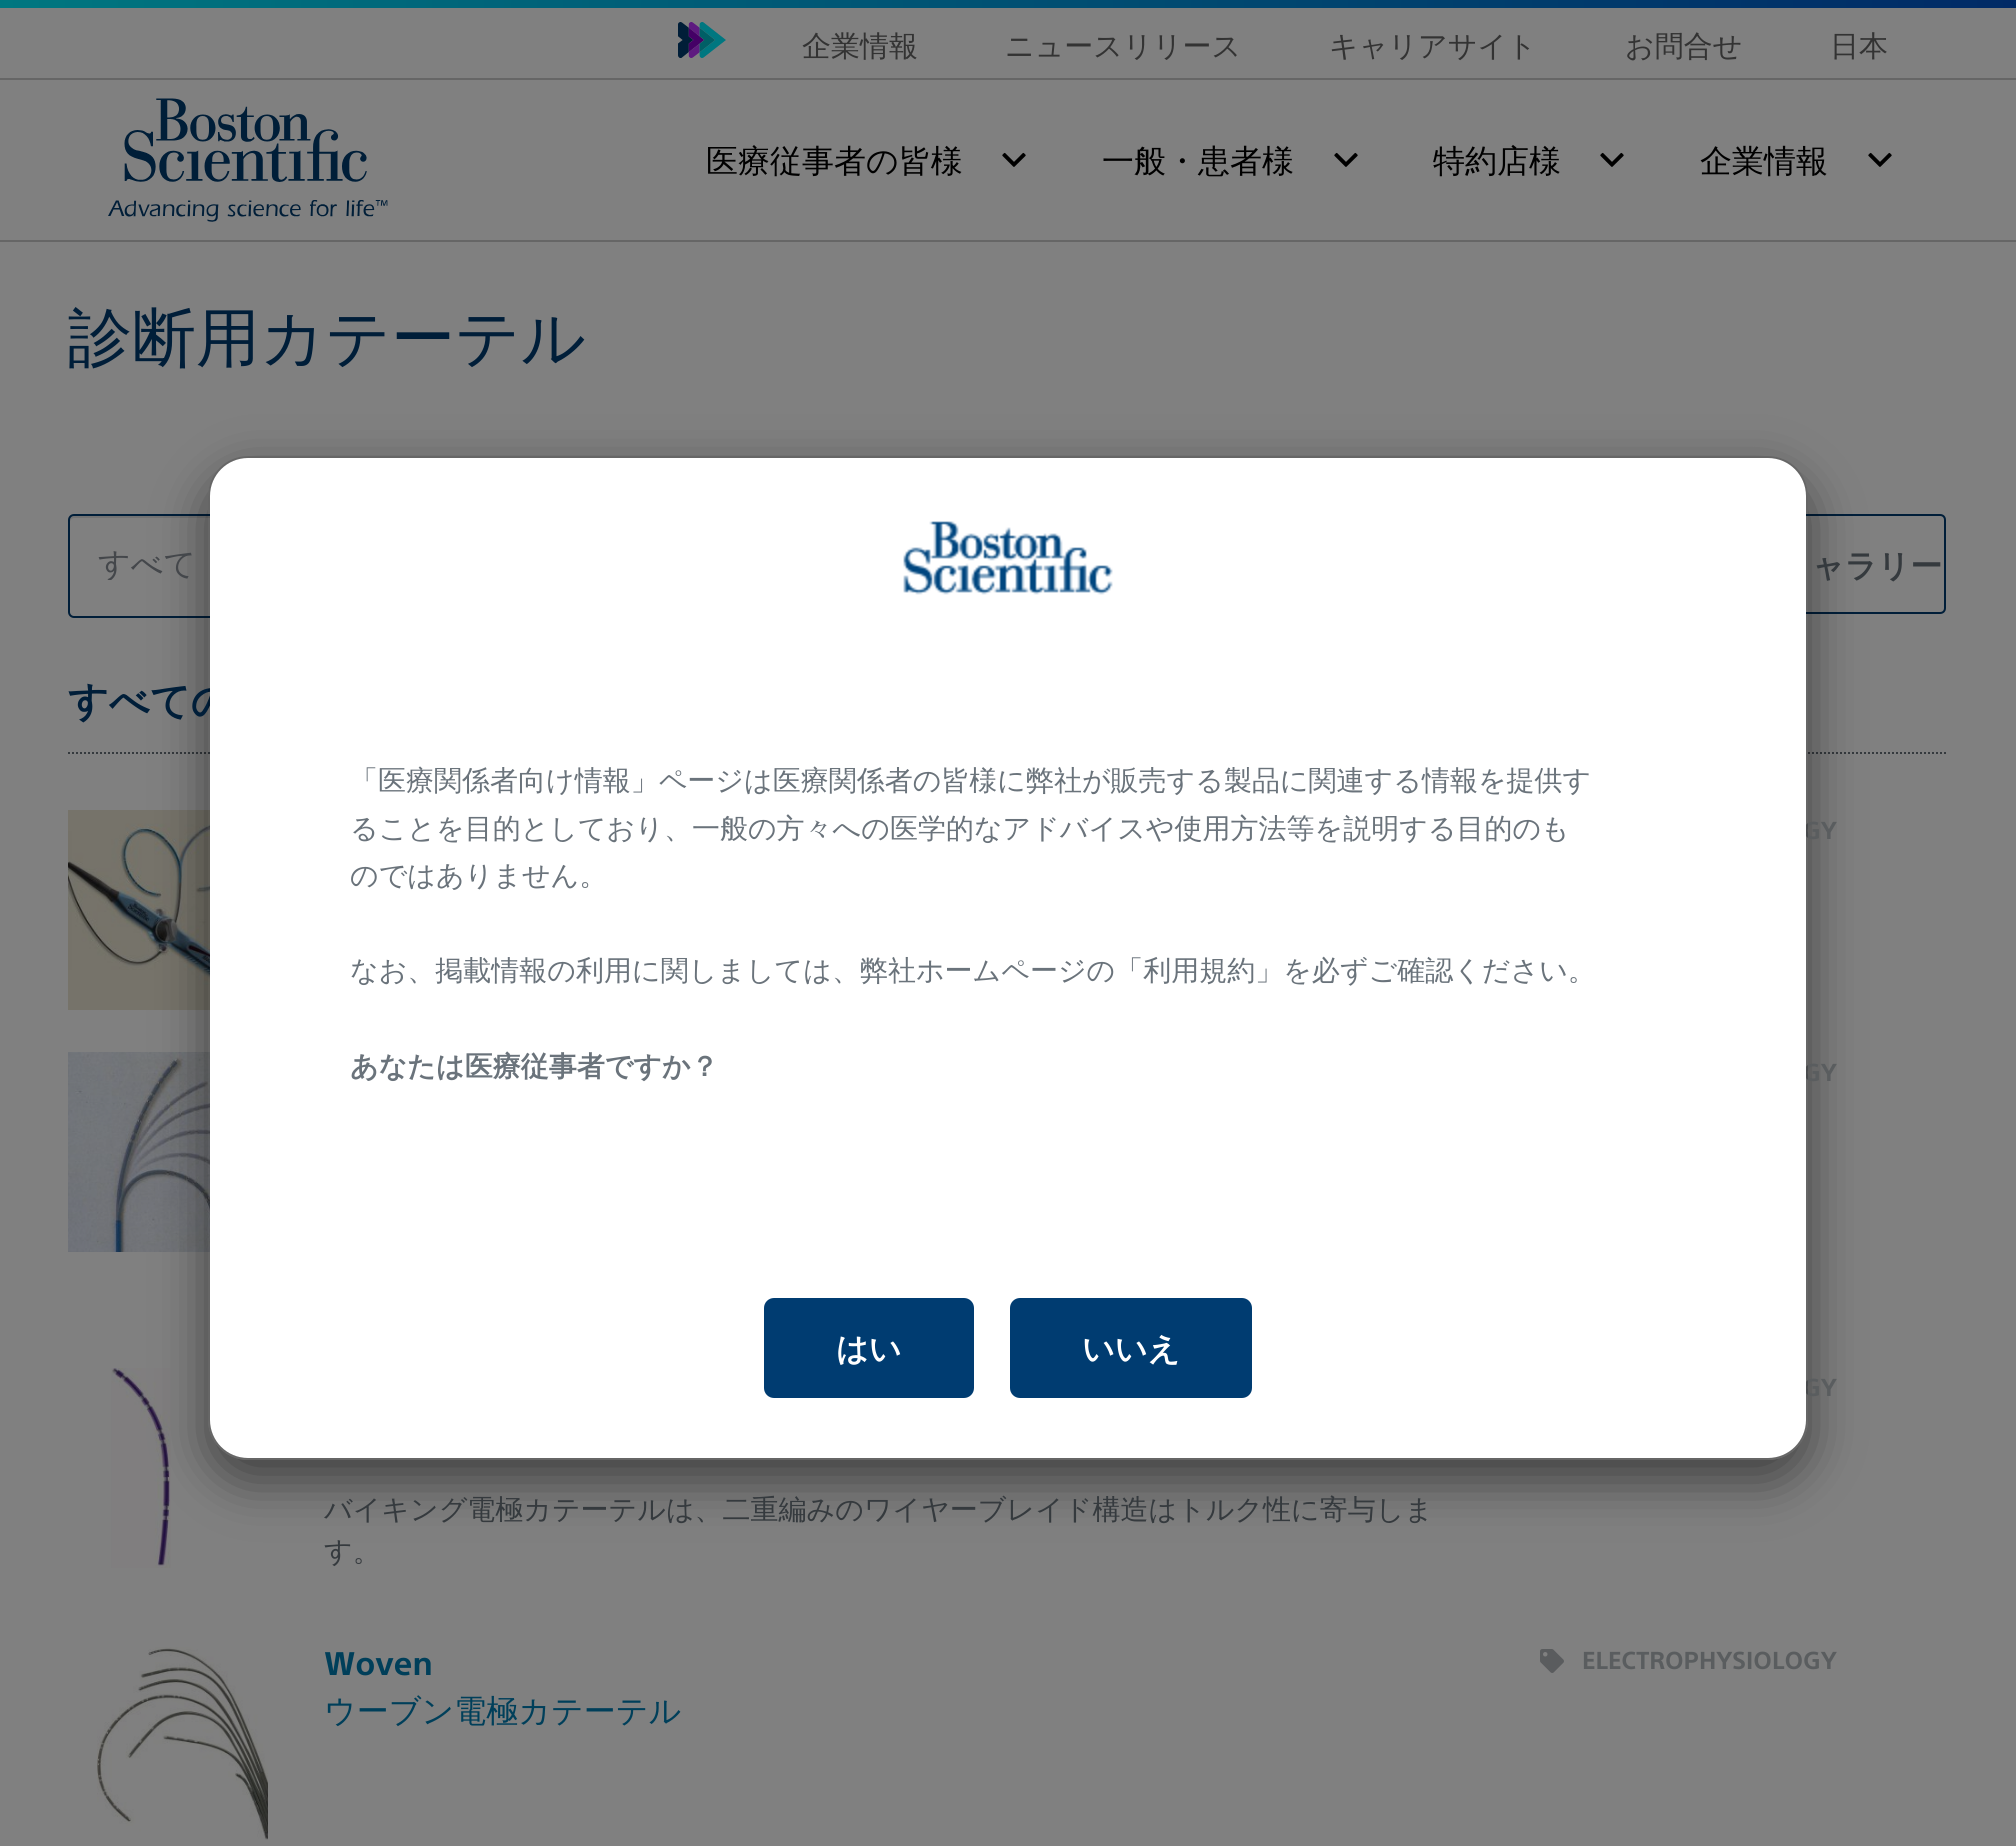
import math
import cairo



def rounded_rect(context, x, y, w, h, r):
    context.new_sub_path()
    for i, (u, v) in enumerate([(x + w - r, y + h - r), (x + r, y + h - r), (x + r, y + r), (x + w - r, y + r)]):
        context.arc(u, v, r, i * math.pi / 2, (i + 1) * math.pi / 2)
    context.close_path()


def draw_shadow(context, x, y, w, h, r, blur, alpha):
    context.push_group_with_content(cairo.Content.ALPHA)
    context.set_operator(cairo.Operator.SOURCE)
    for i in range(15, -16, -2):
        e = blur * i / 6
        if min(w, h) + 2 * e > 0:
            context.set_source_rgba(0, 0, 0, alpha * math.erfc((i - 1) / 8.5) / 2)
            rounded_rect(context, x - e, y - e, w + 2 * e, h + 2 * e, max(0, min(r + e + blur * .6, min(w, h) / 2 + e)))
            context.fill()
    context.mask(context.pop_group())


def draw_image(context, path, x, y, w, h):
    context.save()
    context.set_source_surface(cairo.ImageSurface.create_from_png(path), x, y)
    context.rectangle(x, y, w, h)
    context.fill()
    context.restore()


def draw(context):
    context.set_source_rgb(128 / 255, 128 / 255, 128 / 255)
    context.paint()
    gradient = cairo.LinearGradient(0, 4, 2016, 4)
    gradient.add_color_stop_rgba(0, 0, 119 / 255, 128 / 255, 1)
    gradient.add_color_stop_rgba(1, 1 / 255, 42 / 255, 102 / 255, 1)
    context.set_source(gradient)
    context.rectangle(0, 0, 2016, 8)
    context.fill()
    draw_image(context, "images/1.png", 678, 22, 48, 36)
    context.rectangle(-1, 79, 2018, 162)
    context.set_source_rgb(102 / 255, 102 / 255, 102 / 255)
    context.stroke()
    draw_image(context, "images/2.png", 108, 98, 280, 124)
    draw_image(context, "images/3.png", 1002, 152, 24, 15)
    draw_image(context, "images/3.png", 1334, 152, 24, 15)
    draw_image(context, "images/3.png", 1600, 152, 24, 15)
    draw_image(context, "images/3.png", 1868, 152, 24, 15)
    context.set_source_rgb(115 / 255, 115 / 255, 115 / 255)
    context.new_path()
    context.move_to(74, 518)
    context.line_to(1002, 518)
    context.curve_to(1004, 518, 1006, 520, 1006, 522)
    context.line_to(1006, 520)
    context.curve_to(1006, 518, 1004, 516, 1002, 516)
    context.line_to(74, 516)
    context.curve_to(72, 516, 70, 518, 70, 520)
    context.line_to(70, 522)
    context.curve_to(70, 520, 72, 518, 74, 518)
    context.close_path()
    context.fill()
    rounded_rect(context, 69, 515, 938, 102, 5)
    context.set_source_rgb(0, 30 / 255, 57 / 255)
    context.stroke()
    context.new_path()
    context.move_to(1737, 515)
    context.line_to(1940, 515)
    context.curve_to(1943, 515, 1945, 517, 1945, 520)
    context.line_to(1945, 608)
    context.curve_to(1945, 611, 1943, 613, 1940, 613)
    context.line_to(1737, 613)
    context.close_path()
    context.stroke()
    context.new_path()
    context.move_to(68, 753)
    context.line_to(1948, 753)
    context.set_source_rgb(53 / 255, 58 / 255, 62 / 255)
    context.set_dash([2, 2])
    context.stroke()
    draw_image(context, "images/4.png", 68, 810, 142, 200)
    draw_image(context, "images/5.png", 68, 1052, 142, 200)
    draw_image(context, "images/6.png", 111, 1368, 60, 200)
    draw_image(context, "images/7.png", 97, 1647, 171, 193)
    draw_image(context, "images/8.png", 1540, 1649, 24, 24)
    context.save()
    context.set_fill_rule(cairo.FillRule.EVEN_ODD)
    context.new_path()
    context.move_to(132, 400)
    context.line_to(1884, 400)
    context.line_to(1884, 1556)
    context.line_to(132, 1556)
    context.close_path()
    context.move_to(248, 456)
    context.line_to(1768, 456)
    context.curve_to(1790, 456, 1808, 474, 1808, 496)
    context.line_to(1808, 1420)
    context.curve_to(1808, 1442, 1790, 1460, 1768, 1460)
    context.line_to(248, 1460)
    context.curve_to(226, 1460, 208, 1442, 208, 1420)
    context.line_to(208, 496)
    context.curve_to(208, 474, 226, 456, 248, 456)
    context.close_path()
    context.clip()
    context.set_source_rgb(0, 0, 0)
    draw_shadow(context, 208, 476, 1600, 1004, 40, 25, 0.5)
    context.restore()
    context.select_font_face("WenQuanYi Zen Hei Medium")
    context.set_font_size(29)
    context.set_source_rgb(51 / 255, 51 / 255, 51 / 255)
    context.move_to(802, 56)
    context.show_text("企業情報")
    context.move_to(1005, 56)
    context.show_text("ニュースリリース")
    context.move_to(1329, 56)
    context.show_text("キャリアサイト")
    context.move_to(1625, 56)
    context.show_text("お問合せ")
    context.move_to(1830, 56)
    context.show_text("日本")
    context.set_font_size(32)
    context.set_source_rgb(0, 0, 0)
    context.move_to(706, 172)
    context.show_text("医療従事者の皆様")
    context.move_to(1102, 172)
    context.show_text("一般・患者様")
    context.move_to(1433, 172)
    context.show_text("特約店様")
    context.move_to(1700, 172)
    context.show_text("企業情報")
    context.set_font_size(64)
    context.set_source_rgb(0, 30 / 255, 57 / 255)
    context.move_to(68, 360)
    context.show_text("診断用カテーテル")
    context.save()
    context.rectangle(98, 544, 792, 36)
    context.clip()
    context.set_font_size(32)
    context.set_source_rgb(68 / 255, 71 / 255, 75 / 255)
    context.move_to(98, 575)
    context.show_text("すべて")
    context.restore()
    context.select_font_face("WenQuanYi Zen Hei", cairo.FontSlant.NORMAL, cairo.FontWeight.BOLD)
    context.set_font_size(32)
    context.set_source_rgb(53 / 255, 58 / 255, 62 / 255)
    context.move_to(1812, 577)
    context.show_text("ャラリー")
    context.set_font_size(40)
    context.set_source_rgb(0, 30 / 255, 57 / 255)
    context.move_to(68, 715)
    context.show_text("すべての")
    context.select_font_face("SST", cairo.FontSlant.NORMAL, cairo.FontWeight.BOLD)
    context.set_font_size(24)
    context.set_source_rgb(90 / 255, 93 / 255, 95 / 255)
    context.move_to(1803, 839)
    context.show_text("GY")
    context.move_to(1803, 1081)
    context.show_text("GY")
    context.move_to(1803, 1396)
    context.show_text("GY")
    context.select_font_face("WenQuanYi Zen Hei Medium")
    context.set_font_size(28)
    context.set_source_rgb(53 / 255, 58 / 255, 62 / 255)
    context.move_to(324, 1519)
    context.show_text("バイキング電極カテーテルは、二重編みのワイヤーブレイド構造はトルク性に寄与しま")
    context.move_to(324, 1561)
    context.show_text("す。")
    context.select_font_face("SST", cairo.FontSlant.NORMAL, cairo.FontWeight.BOLD)
    context.set_font_size(32)
    context.set_source_rgb(0, 63 / 255, 90 / 255)
    context.move_to(324, 1675)
    context.show_text("Woven")
    context.select_font_face("WenQuanYi Zen Hei Medium")
    context.move_to(324, 1722)
    context.show_text("ウーブン電極カテーテル")
    context.select_font_face("SST", cairo.FontSlant.NORMAL, cairo.FontWeight.BOLD)
    context.set_font_size(24)
    context.set_source_rgb(90 / 255, 93 / 255, 95 / 255)
    context.move_to(1582, 1669)
    context.show_text("ELECTROPHYSIOLOGY")
    context.set_source_rgb(1, 1, 1)
    rounded_rect(context, 210, 458, 1596, 1000, 38)
    context.fill()
    rounded_rect(context, 209, 457, 1598, 1002, 39)
    context.set_source_rgba(0, 0, 0, 0.2)
    context.set_dash([])
    context.stroke()
    draw_image(context, "images/9.png", 903, 521, 210, 74)
    context.select_font_face("WenQuanYi Zen Hei Medium")
    context.set_font_size(28)
    context.set_source_rgb(106 / 255, 115 / 255, 123 / 255)
    context.move_to(350, 790)
    context.show_text("「医療関係者向け情報」ページは医療関係者の皆様に弊社が販売する製品に関連する情報を提供す")
    context.move_to(350, 838)
    context.show_text("ることを目的としており、一般の方々への医学的なアドバイスや使用方法等を説明する目的のも")
    context.move_to(350, 885)
    context.show_text("のではありません。")
    context.move_to(350, 980)
    context.show_text("なお、掲載情報の利用に関しましては、弊社ホームページの「利用規約」を必ずご確認ください。")
    context.select_font_face("WenQuanYi Zen Hei", cairo.FontSlant.NORMAL, cairo.FontWeight.BOLD)
    context.move_to(350, 1076)
    context.show_text("あなたは医療従事者ですか？")
    context.set_source_rgb(0, 60 / 255, 113 / 255)
    rounded_rect(context, 764, 1298, 210, 100, 10)
    context.fill()
    context.set_font_size(32)
    context.set_source_rgb(1, 1, 1)
    context.move_to(836, 1360)
    context.show_text("はい")
    context.set_source_rgb(0, 60 / 255, 113 / 255)
    rounded_rect(context, 1010, 1298, 242, 100, 10)
    context.fill()
    context.set_source_rgb(1, 1, 1)
    context.move_to(1082, 1360)
    context.show_text("いいえ")


surface = cairo.ImageSurface(cairo.Format.RGB24, 2016, 1846)
context = cairo.Context(surface)
options = cairo.FontOptions()
options.set_hint_metrics(cairo.HintMetrics.OFF)
options.set_hint_style(cairo.HintStyle.NONE)
context.set_font_options(options)
context.set_miter_limit(4)
draw(context)
surface.write_to_png("out.png")
